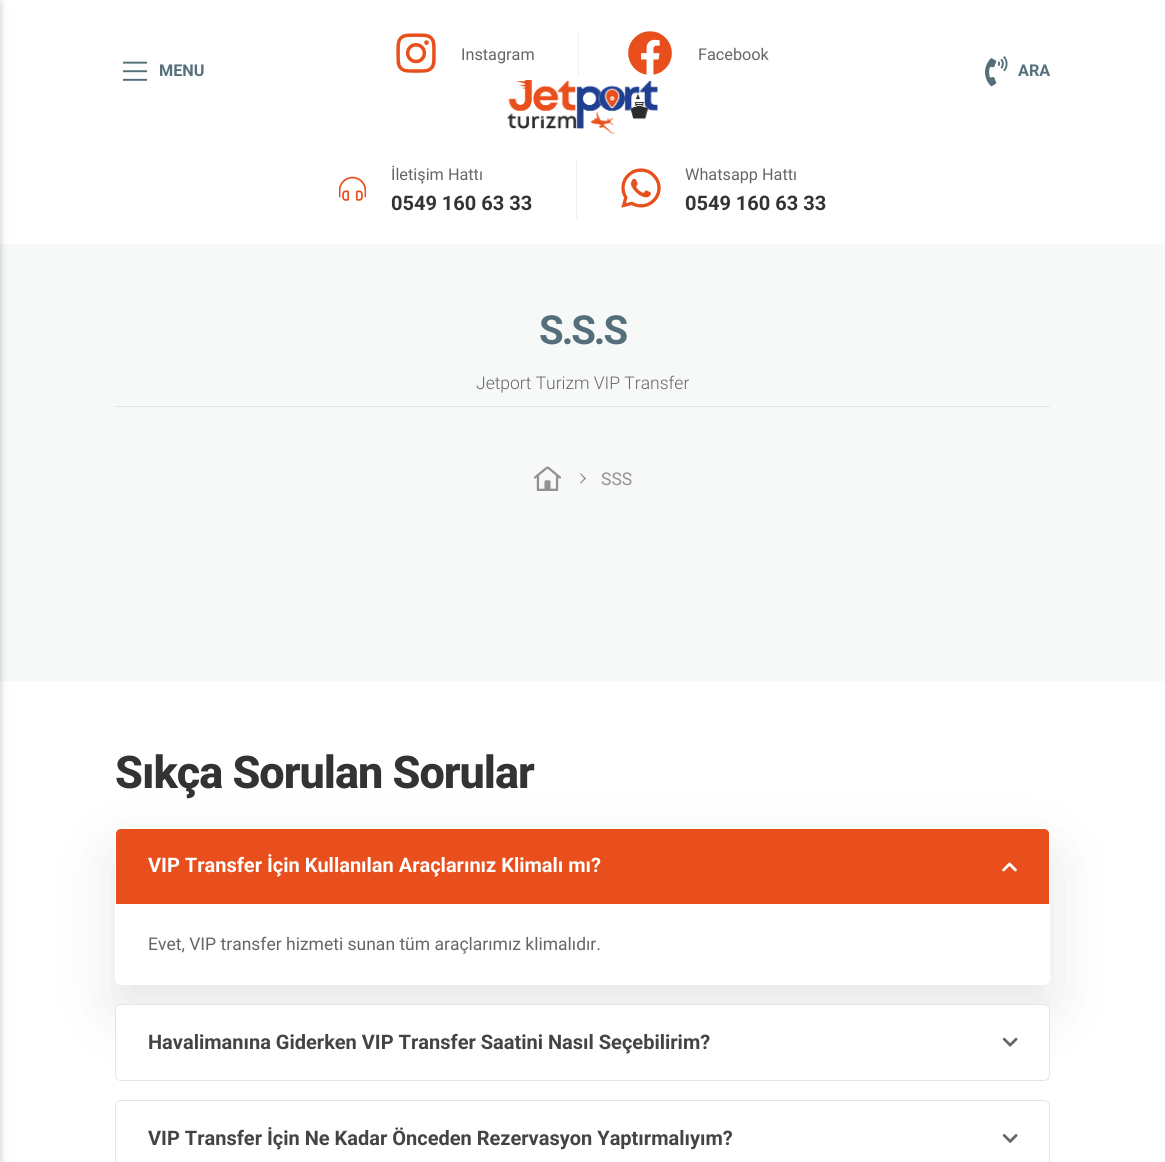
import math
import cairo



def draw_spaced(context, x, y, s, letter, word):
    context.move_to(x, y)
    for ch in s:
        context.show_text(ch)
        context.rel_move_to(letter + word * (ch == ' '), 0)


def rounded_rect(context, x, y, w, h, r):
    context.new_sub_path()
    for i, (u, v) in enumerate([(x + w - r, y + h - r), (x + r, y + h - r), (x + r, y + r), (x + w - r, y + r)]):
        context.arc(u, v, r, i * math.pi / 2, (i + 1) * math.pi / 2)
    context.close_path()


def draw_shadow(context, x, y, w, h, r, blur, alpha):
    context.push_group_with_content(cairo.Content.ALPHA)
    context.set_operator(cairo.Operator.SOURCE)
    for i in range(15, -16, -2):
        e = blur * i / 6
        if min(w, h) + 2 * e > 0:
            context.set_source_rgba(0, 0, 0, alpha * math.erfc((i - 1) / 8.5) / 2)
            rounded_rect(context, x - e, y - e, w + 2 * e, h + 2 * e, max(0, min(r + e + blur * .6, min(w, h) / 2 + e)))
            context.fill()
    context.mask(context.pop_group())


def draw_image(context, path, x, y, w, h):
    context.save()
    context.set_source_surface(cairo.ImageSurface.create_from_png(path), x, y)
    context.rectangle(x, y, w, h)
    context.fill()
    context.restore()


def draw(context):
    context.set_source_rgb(1, 1, 1)
    context.paint()
    context.set_source_rgb(247 / 255, 249 / 255, 249 / 255)
    context.rectangle(0, 244, 1165, 437)
    context.fill()
    context.set_source_rgb(0, 0, 0)
    draw_shadow(context, -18, 3, 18, 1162, 0, 6, 0.1)
    draw_shadow(context, -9, 3, 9, 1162, 0, 3, 0.15)
    context.set_source_rgb(240 / 255, 240 / 255, 240 / 255)
    context.rectangle(578, 31, 1, 45)
    context.fill()
    draw_image(context, "images/1.png", 396, 33, 40, 40)
    draw_image(context, "images/2.png", 628, 31, 44, 44)
    draw_image(context, "images/3.png", 122, 61, 26, 20)
    draw_image(context, "images/4.png", 985, 56, 23, 31)
    draw_image(context, "images/5.png", 507, 80, 151, 54)
    context.rectangle(576, 159, 1, 60)
    context.fill()
    draw_image(context, "images/6.png", 339, 176, 27, 25)
    draw_image(context, "images/7.png", 621, 168, 40, 40)
    context.set_source_rgb(227 / 255, 229 / 255, 229 / 255)
    context.rectangle(115, 406, 935, 1)
    context.fill()
    draw_image(context, "images/8.png", 534, 466, 27, 25)
    context.set_source_rgb(146 / 255, 146 / 255, 146 / 255)
    context.new_path()
    context.move_to(580.5, 473)
    context.line_to(586, 478.5)
    context.line_to(585, 479.5)
    context.line_to(580, 474)
    context.close_path()
    context.fill()
    context.new_path()
    context.move_to(585, 477.5)
    context.line_to(586, 478.5)
    context.line_to(580.5, 484)
    context.line_to(580, 483)
    context.close_path()
    context.fill()
    context.set_source_rgb(0, 0, 0)
    draw_shadow(context, 115, 853, 935, 157, 6, 31, 0.1)
    context.set_source_rgb(1, 1, 1)
    rounded_rect(context, 115, 828, 935, 157, 6)
    context.fill()
    context.set_source_rgb(233 / 255, 79 / 255, 29 / 255)
    context.new_path()
    context.move_to(121, 829)
    context.line_to(1044, 829)
    context.curve_to(1047, 829, 1049, 831, 1049, 834)
    context.line_to(1049, 904)
    context.line_to(116, 904)
    context.line_to(116, 834)
    context.curve_to(116, 831, 118, 829, 121, 829)
    context.close_path()
    context.fill()
    draw_image(context, "images/9.png", 1002, 862, 15, 10)
    context.set_source_rgb(1, 1, 1)
    rounded_rect(context, 115.5, 1004.5, 934, 76, 5.5)
    context.fill_preserve()
    context.set_source_rgb(229 / 255, 229 / 255, 229 / 255)
    context.set_line_width(1)
    context.stroke()
    draw_image(context, "images/10.png", 1002, 1037, 16, 10)
    rounded_rect(context, 115.5, 1100.5, 934, 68, 5.5)
    context.stroke()
    draw_image(context, "images/11.png", 1002, 1134, 16, 9)
    context.select_font_face("Roboto")
    context.set_font_size(16.25)
    context.set_source_rgb(102 / 255, 102 / 255, 102 / 255)
    context.move_to(461, 60)
    context.show_text("Instagram")
    context.move_to(698, 60)
    context.show_text("Facebook")
    context.select_font_face("Roboto", cairo.FontSlant.NORMAL, cairo.FontWeight.BOLD)
    context.set_source_rgb(84 / 255, 110 / 255, 122 / 255)
    context.move_to(159, 76)
    context.show_text("MENU")
    context.move_to(1018, 76)
    context.show_text("ARA")
    context.select_font_face("Roboto")
    context.set_source_rgb(102 / 255, 102 / 255, 102 / 255)
    context.move_to(391, 180)
    context.show_text("İletişim Hattı")
    context.select_font_face("Roboto", cairo.FontSlant.NORMAL, cairo.FontWeight.BOLD)
    context.set_font_size(20)
    context.set_source_rgb(51 / 255, 51 / 255, 51 / 255)
    context.move_to(391, 210)
    context.show_text("0549 160 63 33")
    context.select_font_face("Roboto")
    context.set_font_size(16.25)
    context.set_source_rgb(102 / 255, 102 / 255, 102 / 255)
    context.move_to(685, 180)
    context.show_text("Whatsapp Hattı")
    context.select_font_face("Roboto", cairo.FontSlant.NORMAL, cairo.FontWeight.BOLD)
    context.set_font_size(20)
    context.set_source_rgb(51 / 255, 51 / 255, 51 / 255)
    context.move_to(685, 210)
    context.show_text("0549 160 63 33")
    context.set_font_size(40)
    context.set_source_rgb(84 / 255, 110 / 255, 122 / 255)
    draw_spaced(context, 539, 344, "S.S.S", -2, 0)
    context.select_font_face("Roboto Light")
    context.set_font_size(17.5)
    context.set_source_rgb(102 / 255, 102 / 255, 102 / 255)
    context.move_to(476, 389)
    context.show_text("Jetport Turizm VIP Transfer")
    context.select_font_face("Roboto")
    context.set_source_rgb(146 / 255, 146 / 255, 146 / 255)
    context.move_to(601, 485)
    context.show_text("SSS")
    context.select_font_face("Roboto ExtraBold")
    context.set_font_size(45)
    context.set_source_rgb(51 / 255, 51 / 255, 51 / 255)
    draw_spaced(context, 115, 788, "Sıkça Sorulan Sorular", -1, 0)
    context.select_font_face("Roboto", cairo.FontSlant.NORMAL, cairo.FontWeight.BOLD)
    context.set_font_size(20)
    context.set_source_rgb(1, 1, 1)
    context.move_to(148, 872)
    context.show_text("VIP Transfer İçin Kullanılan Araçlarınız Klimalı mı?")
    context.select_font_face("Roboto")
    context.set_font_size(17.5)
    context.set_source_rgb(102 / 255, 102 / 255, 102 / 255)
    context.move_to(148, 950)
    context.show_text("Evet, VIP transfer hizmeti sunan tüm araçlarımız klimalıdır.")
    context.select_font_face("Roboto", cairo.FontSlant.NORMAL, cairo.FontWeight.BOLD)
    context.set_font_size(20)
    context.set_source_rgb(68 / 255, 68 / 255, 68 / 255)
    context.move_to(148, 1049)
    context.show_text("Havalimanına Giderken VIP Transfer Saatini Nasıl Seçebilirim?")
    context.move_to(148, 1145)
    context.show_text("VIP Transfer İçin Ne Kadar Önceden Rezervasyon Yaptırmalıyım?")


surface = cairo.ImageSurface(cairo.Format.RGB24, 1165, 1162)
context = cairo.Context(surface)
options = cairo.FontOptions()
options.set_hint_metrics(cairo.HintMetrics.OFF)
options.set_hint_style(cairo.HintStyle.NONE)
context.set_font_options(options)
context.set_miter_limit(4)
draw(context)
surface.write_to_png("out.png")
